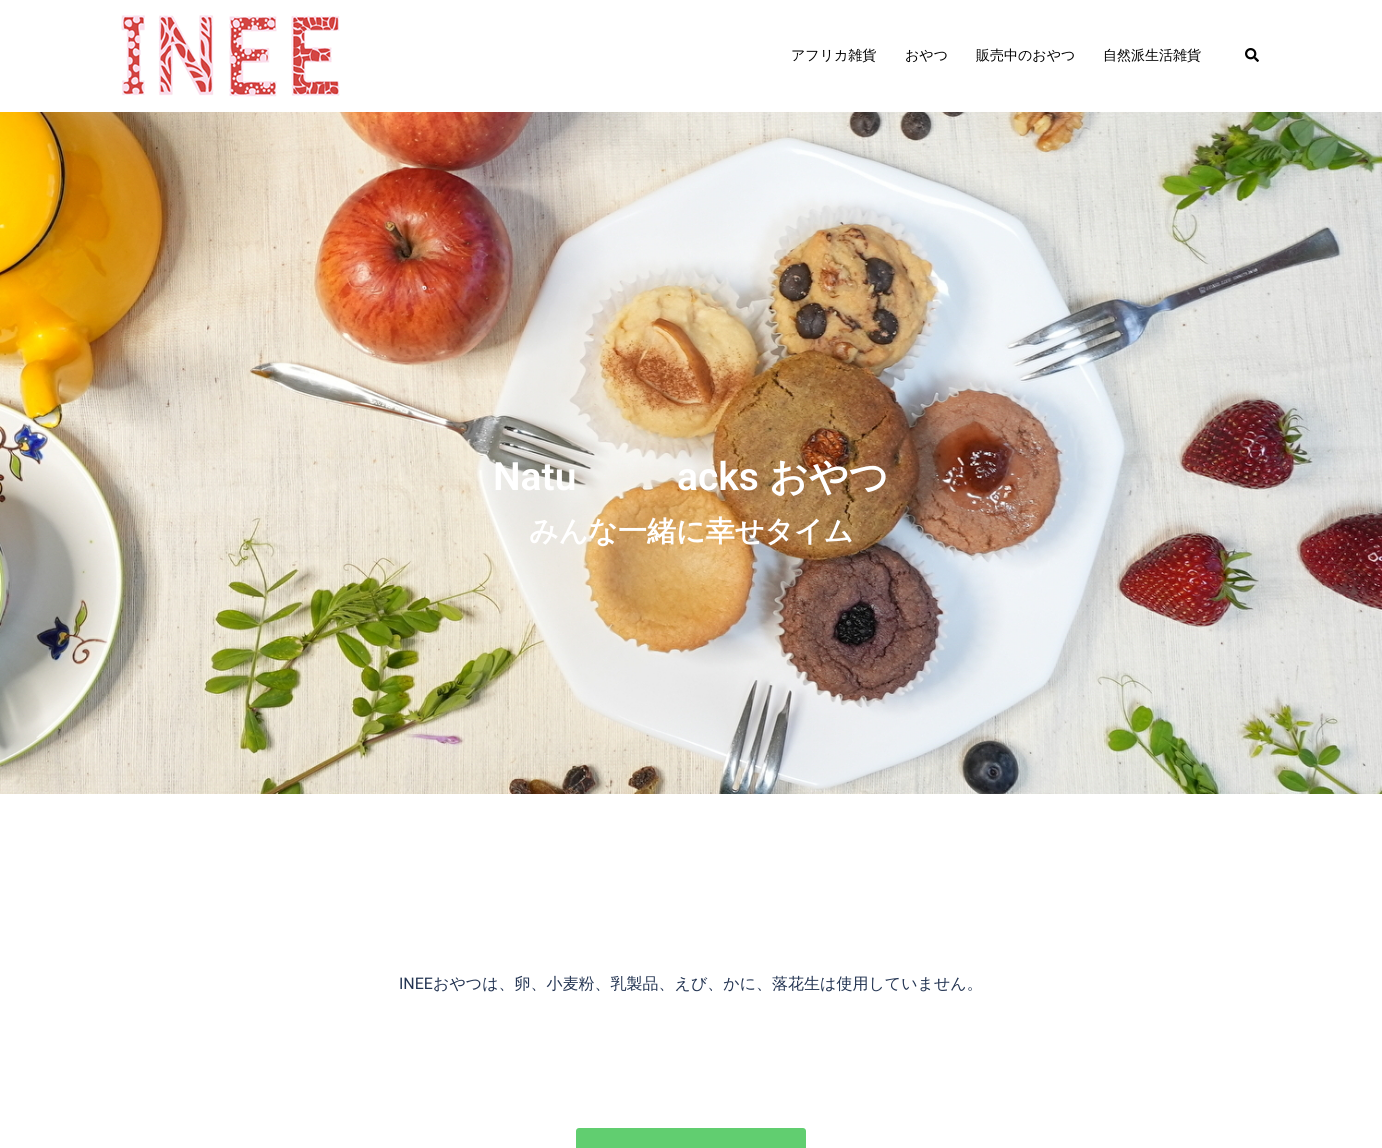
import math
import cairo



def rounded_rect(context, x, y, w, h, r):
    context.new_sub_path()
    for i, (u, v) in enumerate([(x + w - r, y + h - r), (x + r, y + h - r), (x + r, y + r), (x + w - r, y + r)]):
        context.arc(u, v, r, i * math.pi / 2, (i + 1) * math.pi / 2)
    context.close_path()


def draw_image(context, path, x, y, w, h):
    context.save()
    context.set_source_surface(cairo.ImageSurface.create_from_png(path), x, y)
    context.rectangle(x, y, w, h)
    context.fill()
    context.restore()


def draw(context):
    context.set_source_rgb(1, 1, 1)
    context.paint()
    draw_image(context, "images/1.png", 121, 15, 219, 82)
    draw_image(context, "images/2.png", 1245, 48, 14, 14)
    draw_image(context, "images/3.png", 0, 112, 1382, 682)
    context.set_source_rgb(97 / 255, 206 / 255, 112 / 255)
    rounded_rect(context, 576, 1128, 230, 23, 3)
    context.fill()
    context.select_font_face("WenQuanYi Zen Hei Medium")
    context.set_font_size(14)
    context.set_source_rgb(0, 0, 0)
    context.move_to(791, 60)
    context.show_text("アフリカ雑貨")
    context.move_to(905, 60)
    context.show_text("おやつ")
    context.move_to(976, 60)
    context.show_text("販売中のおやつ")
    context.move_to(1103, 60)
    context.show_text("自然派生活雑貨")
    context.select_font_face("Roboto SemiBold")
    context.set_font_size(39)
    context.set_source_rgb(1, 1, 1)
    context.move_to(493, 490)
    context.show_text("Natu")
    context.move_to(677, 490)
    context.show_text("acks")
    context.select_font_face("WenQuanYi Zen Hei", cairo.FontSlant.NORMAL, cairo.FontWeight.BOLD)
    context.move_to(769, 490)
    context.show_text("おやつ")
    context.set_font_size(29)
    context.move_to(529, 541)
    context.show_text("みんな一緒に幸せタイム")
    context.select_font_face("Roboto")
    context.set_font_size(16)
    context.set_source_rgb(35 / 255, 52 / 255, 82 / 255)
    context.move_to(399, 989)
    context.show_text("INEE")
    context.select_font_face("WenQuanYi Zen Hei Medium")
    context.move_to(433, 989)
    context.show_text("おやつは、卵、小麦粉、乳製品、えび、かに、落花生は使用していません。")


surface = cairo.ImageSurface(cairo.Format.RGB24, 1382, 1148)
context = cairo.Context(surface)
options = cairo.FontOptions()
options.set_hint_metrics(cairo.HintMetrics.OFF)
options.set_hint_style(cairo.HintStyle.NONE)
context.set_font_options(options)
context.set_miter_limit(4)
draw(context)
surface.write_to_png("out.png")
